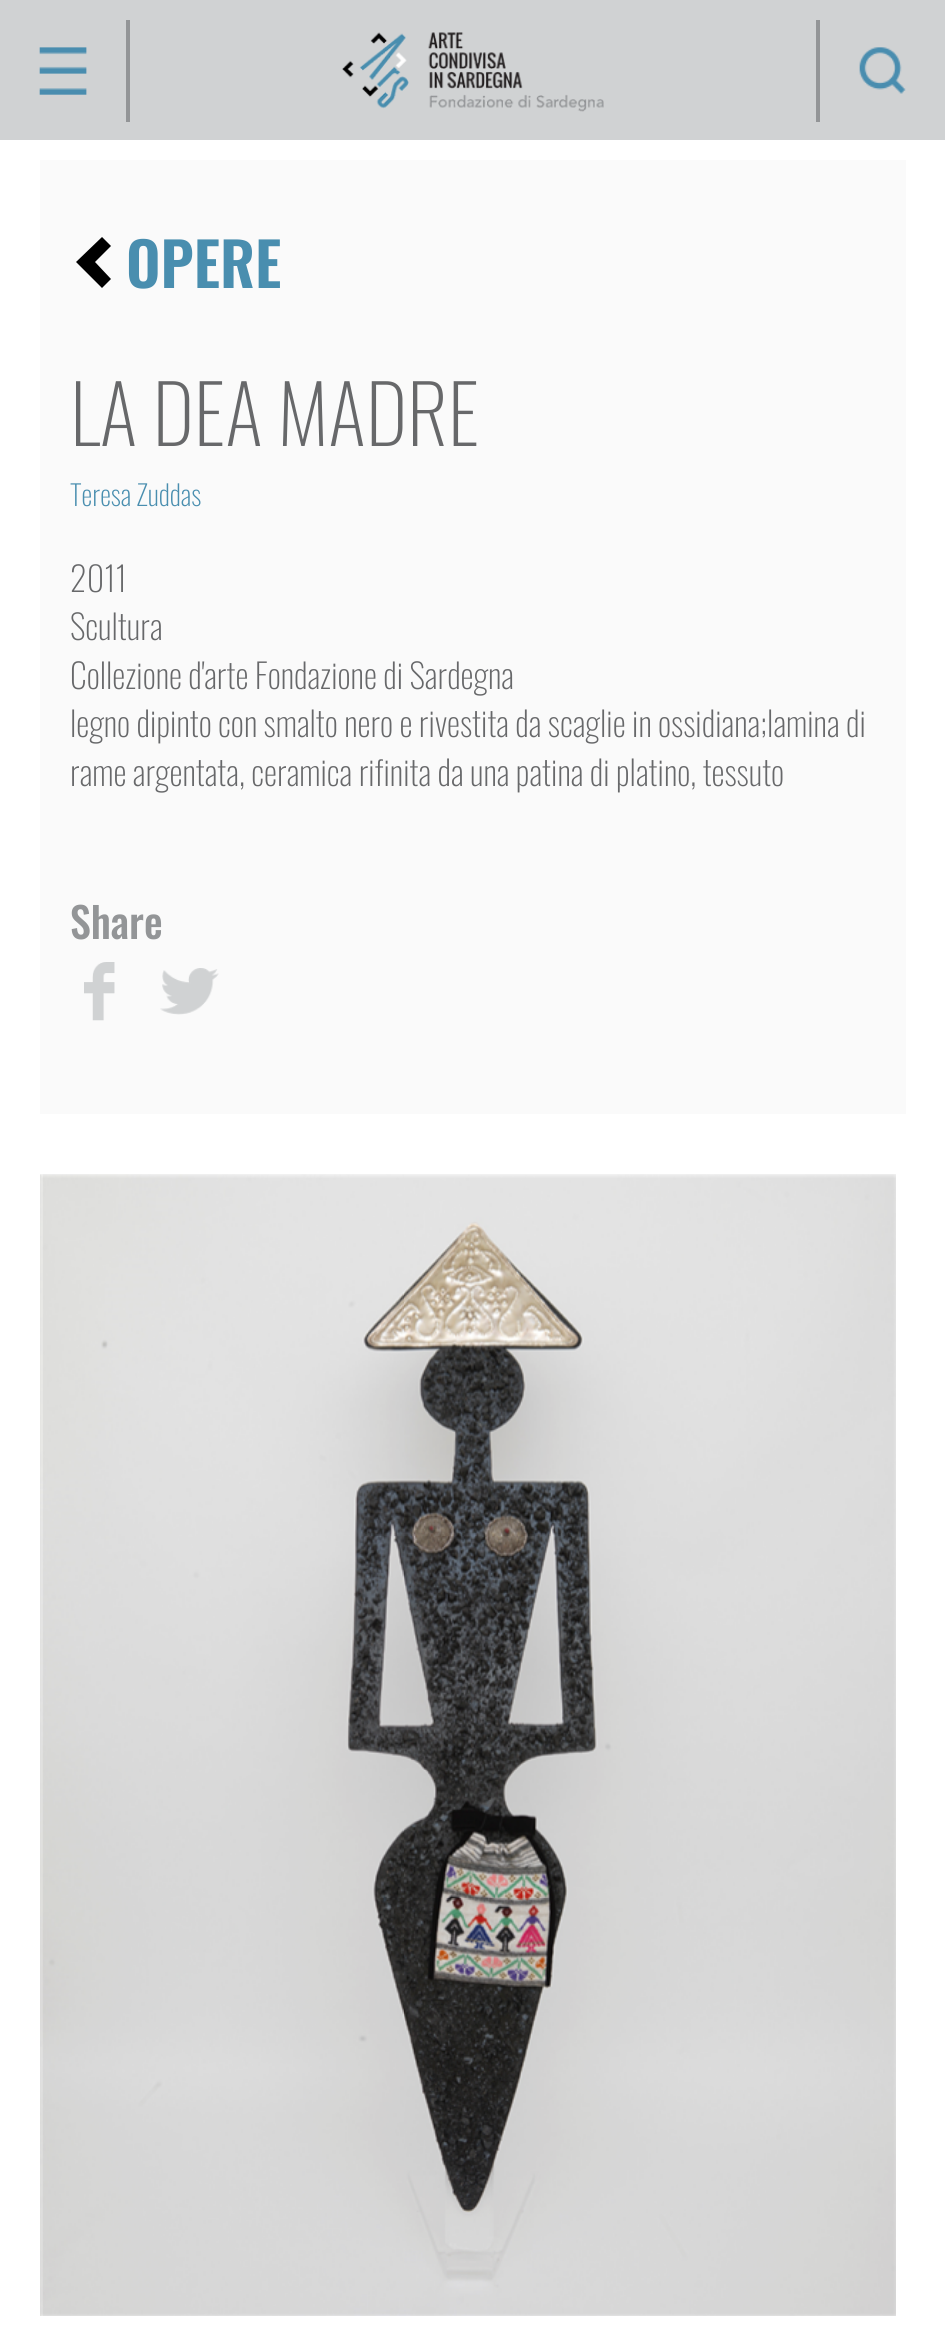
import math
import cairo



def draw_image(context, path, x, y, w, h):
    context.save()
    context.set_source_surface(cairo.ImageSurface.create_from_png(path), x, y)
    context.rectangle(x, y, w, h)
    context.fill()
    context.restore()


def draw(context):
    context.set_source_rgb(1, 1, 1)
    context.paint()
    context.set_source_rgb(208 / 255, 210 / 255, 211 / 255)
    context.rectangle(0, 0, 945, 140)
    context.fill()
    draw_image(context, "images/1.png", 39, 47, 48, 48)
    context.set_source_rgb(147 / 255, 149 / 255, 151 / 255)
    context.rectangle(126, 20, 4, 102)
    context.fill()
    draw_image(context, "images/2.png", 342, 32, 262, 80)
    draw_image(context, "images/3.png", 859, 47, 47, 47)
    context.rectangle(816, 20, 4, 102)
    context.fill()
    context.set_source_rgb(250 / 255, 250 / 255, 250 / 255)
    context.rectangle(40, 160, 866, 954)
    context.fill()
    context.set_source_rgb(0, 0, 0)
    context.new_path()
    context.move_to(111, 246)
    context.line_to(95, 262)
    context.line_to(111, 279)
    context.line_to(102, 288)
    context.line_to(76, 262)
    context.line_to(102, 237)
    context.close_path()
    context.fill()
    draw_image(context, "images/4.png", 84, 962, 31, 59)
    draw_image(context, "images/5.png", 160, 968, 59, 47)
    draw_image(context, "images/6.png", 40, 1174, 856, 1142)
    context.select_font_face("Oswald SemiBold")
    context.set_font_size(60)
    context.set_source_rgb(73 / 255, 142 / 255, 175 / 255)
    context.move_to(126, 288)
    context.show_text("OPERE")
    context.select_font_face("Oswald ExtraLight")
    context.set_font_size(80)
    context.set_source_rgb(103 / 255, 104 / 255, 106 / 255)
    context.move_to(70, 446)
    context.show_text("LA DEA MADRE")
    context.set_font_size(28)
    context.set_source_rgb(73 / 255, 142 / 255, 175 / 255)
    context.move_to(70, 506)
    context.show_text("Teresa Zuddas")
    context.set_font_size(34)
    context.set_source_rgb(103 / 255, 104 / 255, 106 / 255)
    context.move_to(70, 592)
    context.show_text("2011")
    context.move_to(70, 640)
    context.show_text("Scultura")
    context.move_to(70, 689)
    context.show_text("Collezione d'arte Fondazione di Sardegna")
    context.move_to(70, 737)
    context.show_text("legno dipinto con smalto nero e rivestita da scaglie in ossidiana;lamina di")
    context.move_to(70, 786)
    context.show_text("rame argentata, ceramica rifinita da una patina di platino, tessuto")
    context.select_font_face("Oswald Medium")
    context.set_font_size(42)
    context.set_source_rgb(147 / 255, 149 / 255, 151 / 255)
    context.move_to(70, 939)
    context.show_text("Share")


surface = cairo.ImageSurface(cairo.Format.RGB24, 945, 2351)
context = cairo.Context(surface)
options = cairo.FontOptions()
options.set_hint_metrics(cairo.HintMetrics.OFF)
options.set_hint_style(cairo.HintStyle.NONE)
context.set_font_options(options)
context.set_miter_limit(4)
draw(context)
surface.write_to_png("out.png")
